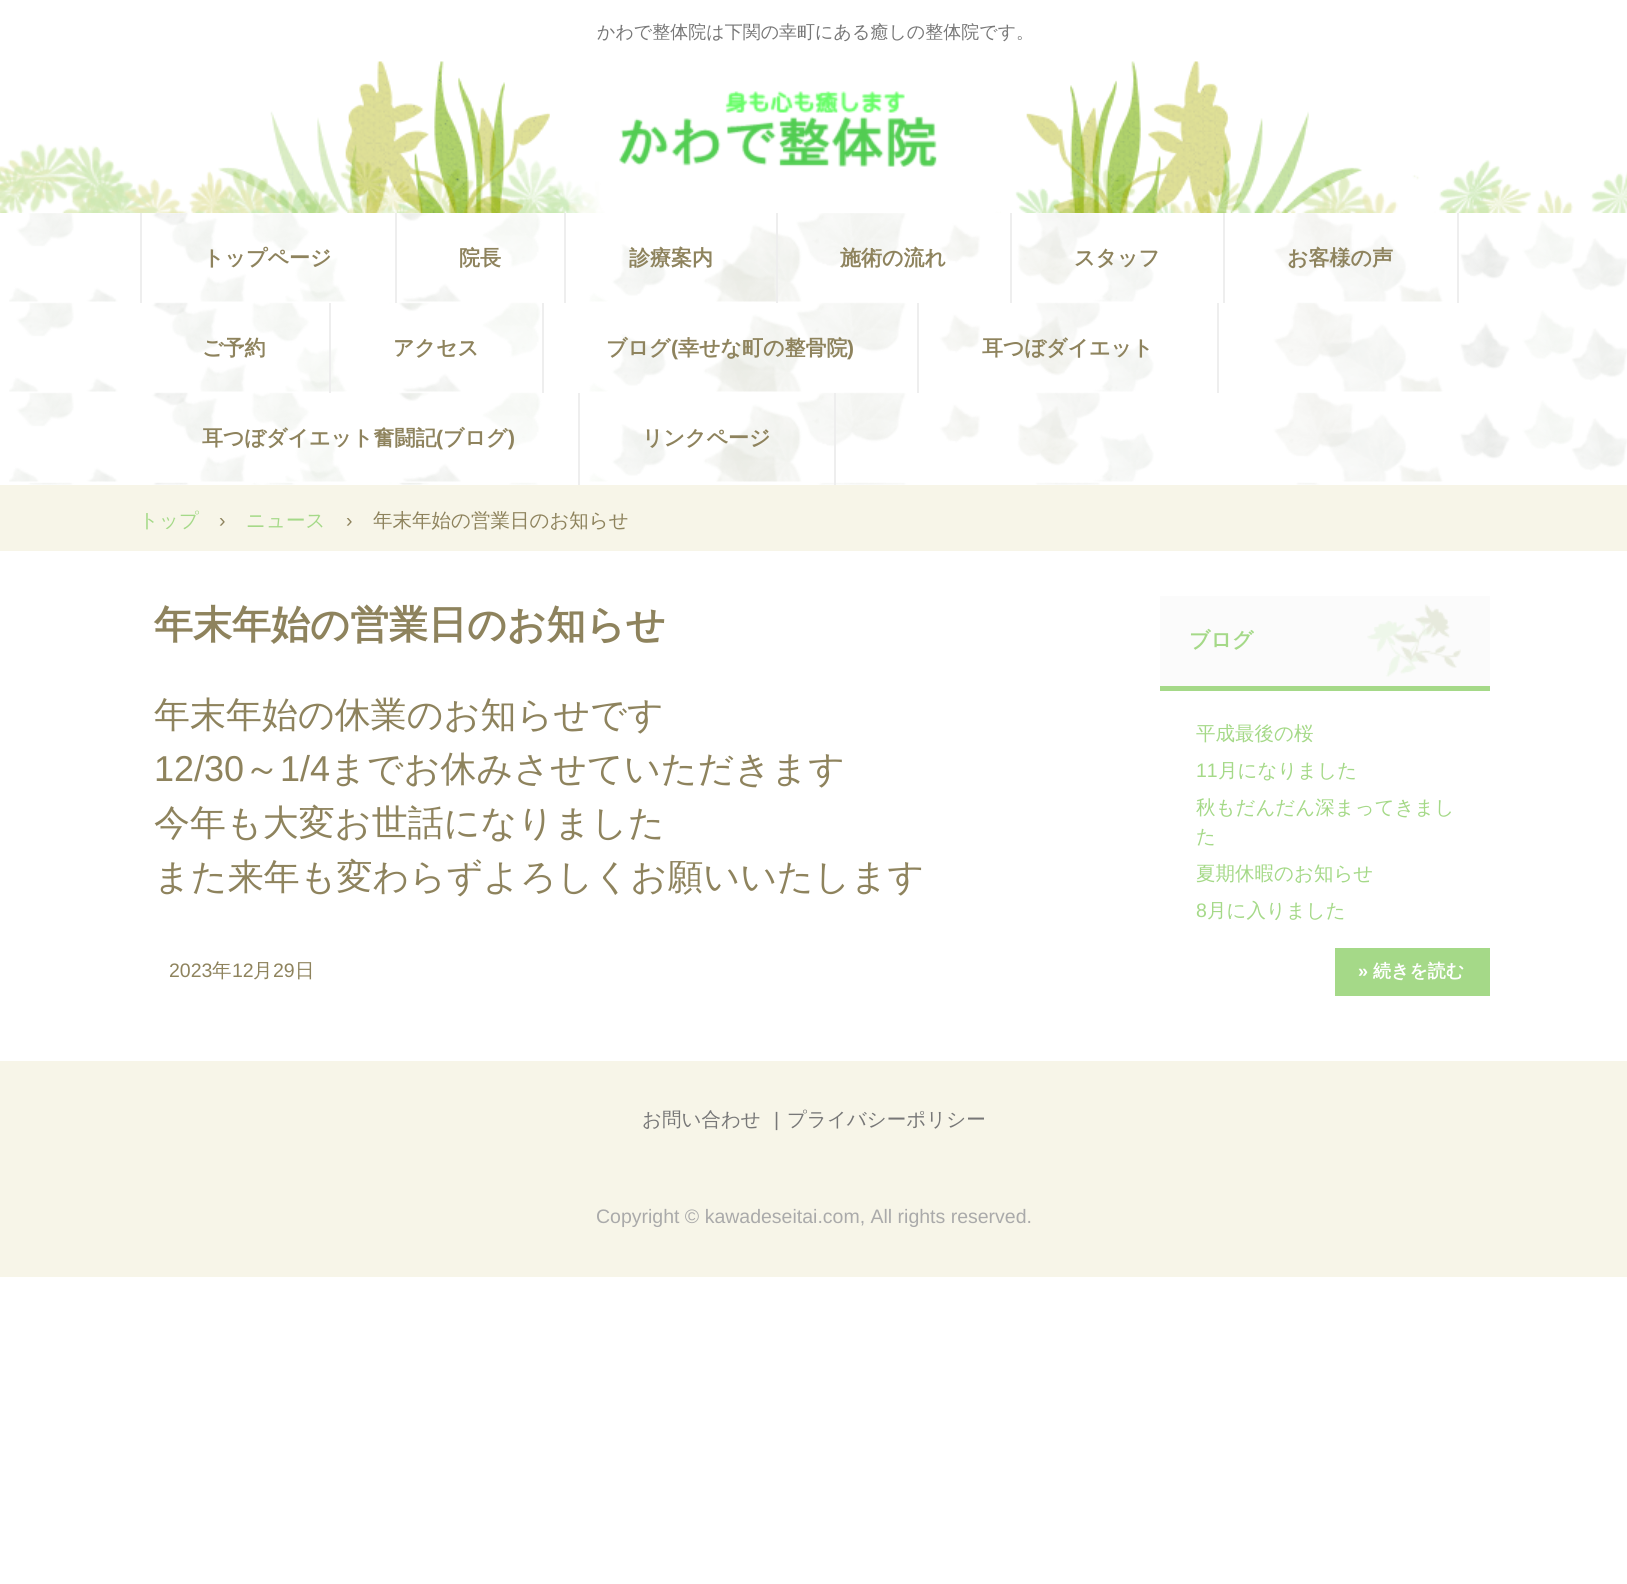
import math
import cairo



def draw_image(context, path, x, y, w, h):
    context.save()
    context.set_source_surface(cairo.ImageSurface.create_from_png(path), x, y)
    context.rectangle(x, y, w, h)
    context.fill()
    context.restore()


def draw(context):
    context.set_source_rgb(1, 1, 1)
    context.paint()
    draw_image(context, "images/1.png", 0, 61, 1627, 152)
    draw_image(context, "images/2.png", 619, 91, 318, 76)
    draw_image(context, "images/3.png", 9, 213, 1618, 272)
    context.set_source_rgb(238 / 255, 238 / 255, 238 / 255)
    context.rectangle(395, 213, 2, 90)
    context.fill()
    context.rectangle(140, 213, 2, 90)
    context.fill()
    context.rectangle(564, 213, 2, 90)
    context.fill()
    context.rectangle(776, 213, 2, 90)
    context.fill()
    context.rectangle(1010, 213, 2, 90)
    context.fill()
    context.rectangle(1223, 213, 2, 90)
    context.fill()
    context.rectangle(1457, 213, 2, 90)
    context.fill()
    context.rectangle(329, 303, 2, 90)
    context.fill()
    context.rectangle(542, 303, 2, 90)
    context.fill()
    context.rectangle(917, 303, 2, 90)
    context.fill()
    context.rectangle(1217, 303, 2, 90)
    context.fill()
    context.rectangle(578, 393, 2, 92)
    context.fill()
    context.rectangle(834, 393, 2, 92)
    context.fill()
    context.set_source_rgb(247 / 255, 245 / 255, 232 / 255)
    context.rectangle(0, 485, 1627, 66)
    context.fill()
    context.set_source_rgb(251 / 255, 251 / 255, 251 / 255)
    context.rectangle(1160, 596, 330, 90)
    context.fill()
    draw_image(context, "images/4.png", 1367, 604, 94, 73)
    context.set_source_rgb(165 / 255, 217 / 255, 136 / 255)
    context.rectangle(1160, 686, 330, 5)
    context.fill()
    context.rectangle(1335, 948, 155, 48)
    context.fill()
    context.set_source_rgb(247 / 255, 245 / 255, 232 / 255)
    context.rectangle(0, 1061, 1627, 216)
    context.fill()
    context.select_font_face("WenQuanYi Zen Hei Medium")
    context.set_font_size(18)
    context.set_source_rgb(119 / 255, 119 / 255, 119 / 255)
    context.move_to(597, 38)
    context.show_text("かわで整体院は下関の幸町にある癒しの整体院です。")
    context.select_font_face("WenQuanYi Zen Hei", cairo.FontSlant.NORMAL, cairo.FontWeight.BOLD)
    context.set_font_size(21)
    context.set_source_rgb(142 / 255, 131 / 255, 93 / 255)
    context.move_to(203, 265)
    context.show_text("トップページ")
    context.move_to(459, 265)
    context.show_text("院長")
    context.move_to(629, 265)
    context.show_text("診療案内")
    context.move_to(840, 265)
    context.show_text("施術の流れ")
    context.move_to(1074, 265)
    context.show_text("スタッフ")
    context.move_to(1287, 265)
    context.show_text("お客様の声")
    context.move_to(202, 355)
    context.show_text("ご予約")
    context.move_to(393, 355)
    context.show_text("アクセス")
    context.move_to(606, 355)
    context.show_text("ブログ")
    context.select_font_face("Liberation Sans", cairo.FontSlant.NORMAL, cairo.FontWeight.BOLD)
    context.move_to(671, 355)
    context.show_text("(")
    context.select_font_face("WenQuanYi Zen Hei", cairo.FontSlant.NORMAL, cairo.FontWeight.BOLD)
    context.move_to(678, 355)
    context.show_text("幸せな町の整骨院")
    context.select_font_face("Liberation Sans", cairo.FontSlant.NORMAL, cairo.FontWeight.BOLD)
    context.move_to(847, 355)
    context.show_text(")")
    context.select_font_face("WenQuanYi Zen Hei", cairo.FontSlant.NORMAL, cairo.FontWeight.BOLD)
    context.move_to(982, 355)
    context.show_text("耳つぼダイエット")
    context.move_to(202, 445)
    context.show_text("耳つぼダイエット奮闘記")
    context.select_font_face("Liberation Sans", cairo.FontSlant.NORMAL, cairo.FontWeight.BOLD)
    context.move_to(436, 445)
    context.show_text("(")
    context.select_font_face("WenQuanYi Zen Hei", cairo.FontSlant.NORMAL, cairo.FontWeight.BOLD)
    context.move_to(443, 445)
    context.show_text("ブログ")
    context.select_font_face("Liberation Sans", cairo.FontSlant.NORMAL, cairo.FontWeight.BOLD)
    context.move_to(508, 445)
    context.show_text(")")
    context.select_font_face("WenQuanYi Zen Hei", cairo.FontSlant.NORMAL, cairo.FontWeight.BOLD)
    context.move_to(642, 445)
    context.show_text("リンクページ")
    context.select_font_face("WenQuanYi Zen Hei Medium")
    context.set_font_size(19.5)
    context.set_source_rgb(165 / 255, 217 / 255, 136 / 255)
    context.move_to(139, 527)
    context.show_text("トップ")
    context.select_font_face("Liberation Sans")
    context.set_source_rgb(142 / 255, 131 / 255, 93 / 255)
    context.move_to(219, 527)
    context.show_text("›")
    context.select_font_face("WenQuanYi Zen Hei Medium")
    context.set_source_rgb(165 / 255, 217 / 255, 136 / 255)
    context.move_to(246, 527)
    context.show_text("ニュース")
    context.select_font_face("Liberation Sans")
    context.set_source_rgb(142 / 255, 131 / 255, 93 / 255)
    context.move_to(346, 527)
    context.show_text("›")
    context.select_font_face("WenQuanYi Zen Hei Medium")
    context.move_to(373, 527)
    context.show_text("年末年始の営業日のお知らせ")
    context.select_font_face("WenQuanYi Zen Hei", cairo.FontSlant.NORMAL, cairo.FontWeight.BOLD)
    context.set_font_size(39)
    context.move_to(154, 638)
    context.show_text("年末年始の営業日のお知らせ")
    context.select_font_face("WenQuanYi Zen Hei Medium")
    context.set_font_size(36)
    context.move_to(154, 727)
    context.show_text("年末年始の休業のお知らせです")
    context.select_font_face("Liberation Sans")
    context.move_to(154, 781)
    context.show_text("12/30")
    context.select_font_face("WenQuanYi Zen Hei Medium")
    context.move_to(244, 781)
    context.show_text("～")
    context.select_font_face("Liberation Sans")
    context.move_to(280, 781)
    context.show_text("1/4")
    context.select_font_face("WenQuanYi Zen Hei Medium")
    context.move_to(330, 781)
    context.show_text("までお休みさせていただきます")
    context.move_to(154, 835)
    context.show_text("今年も大変お世話になりました")
    context.move_to(154, 889)
    context.show_text("また来年も変わらずよろしくお願いいたします")
    context.select_font_face("Liberation Sans")
    context.set_font_size(19.5)
    context.move_to(169, 977)
    context.show_text("2023")
    context.select_font_face("WenQuanYi Zen Hei Medium")
    context.move_to(212, 977)
    context.show_text("年")
    context.select_font_face("Liberation Sans")
    context.move_to(232, 977)
    context.show_text("12")
    context.select_font_face("WenQuanYi Zen Hei Medium")
    context.move_to(253, 977)
    context.show_text("月")
    context.select_font_face("Liberation Sans")
    context.move_to(273, 977)
    context.show_text("29")
    context.select_font_face("WenQuanYi Zen Hei Medium")
    context.move_to(295, 977)
    context.show_text("日")
    context.select_font_face("WenQuanYi Zen Hei", cairo.FontSlant.NORMAL, cairo.FontWeight.BOLD)
    context.set_font_size(21)
    context.set_source_rgb(165 / 255, 217 / 255, 136 / 255)
    context.move_to(1189, 647)
    context.show_text("ブログ")
    context.select_font_face("WenQuanYi Zen Hei Medium")
    context.set_font_size(19.5)
    context.move_to(1196, 740)
    context.show_text("平成最後の桜")
    context.select_font_face("Liberation Sans")
    context.move_to(1196, 777)
    context.show_text("11")
    context.select_font_face("WenQuanYi Zen Hei Medium")
    context.move_to(1218, 777)
    context.show_text("月になりました")
    context.move_to(1196, 814)
    context.show_text("秋もだんだん深まってきまし")
    context.move_to(1196, 843)
    context.show_text("た")
    context.move_to(1196, 880)
    context.show_text("夏期休暇のお知らせ")
    context.select_font_face("Liberation Sans")
    context.move_to(1196, 917)
    context.show_text("8")
    context.select_font_face("WenQuanYi Zen Hei Medium")
    context.move_to(1207, 917)
    context.show_text("月に入りました")
    context.select_font_face("Liberation Sans", cairo.FontSlant.NORMAL, cairo.FontWeight.BOLD)
    context.set_font_size(18)
    context.set_source_rgb(1, 1, 1)
    context.move_to(1358, 977)
    context.show_text("»")
    context.select_font_face("WenQuanYi Zen Hei", cairo.FontSlant.NORMAL, cairo.FontWeight.BOLD)
    context.move_to(1373, 977)
    context.show_text("続きを読む")
    context.select_font_face("WenQuanYi Zen Hei Medium")
    context.set_font_size(19.5)
    context.set_source_rgb(119 / 255, 119 / 255, 119 / 255)
    context.move_to(642, 1126)
    context.show_text("お問い合わせ")
    context.select_font_face("Liberation Sans")
    context.move_to(774, 1126)
    context.show_text("|")
    context.select_font_face("WenQuanYi Zen Hei Medium")
    context.move_to(787, 1126)
    context.show_text("プライバシーポリシー")
    context.select_font_face("Liberation Sans")
    context.set_source_rgb(170 / 255, 170 / 255, 170 / 255)
    context.move_to(596, 1223)
    context.show_text("Copyright © kawadeseitai.com, All rights reserved.")


surface = cairo.ImageSurface(cairo.Format.RGB24, 1627, 1584)
context = cairo.Context(surface)
options = cairo.FontOptions()
options.set_hint_metrics(cairo.HintMetrics.OFF)
options.set_hint_style(cairo.HintStyle.NONE)
context.set_font_options(options)
context.set_miter_limit(4)
draw(context)
surface.write_to_png("out.png")
